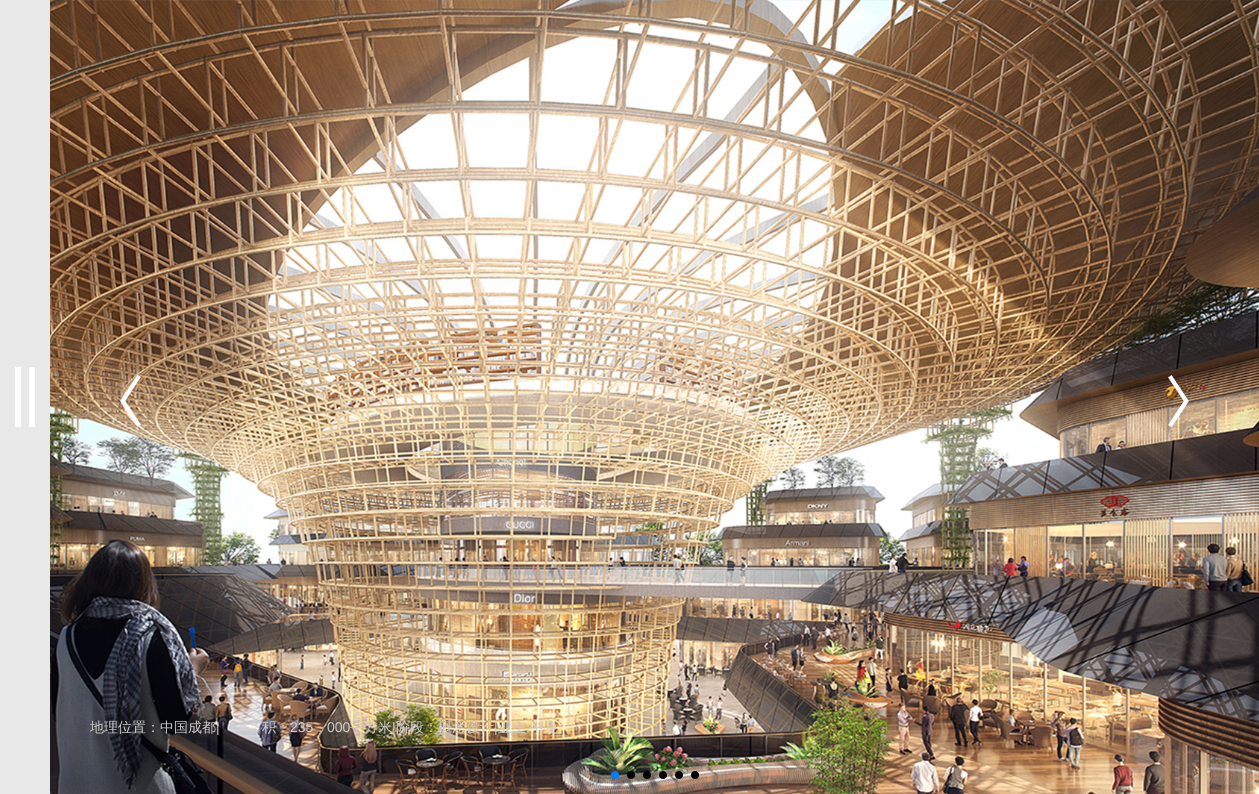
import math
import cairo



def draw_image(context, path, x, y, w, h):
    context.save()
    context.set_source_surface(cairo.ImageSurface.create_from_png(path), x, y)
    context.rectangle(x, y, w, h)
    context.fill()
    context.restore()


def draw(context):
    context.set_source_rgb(232 / 255, 232 / 255, 232 / 255)
    context.paint()
    context.set_source_rgb(1, 1, 1)
    context.rectangle(15, 367, 6, 60)
    context.fill()
    context.rectangle(29, 367, 6, 60)
    context.fill()
    draw_image(context, "images/1.png", 50, 0, 1209, 794)
    draw_image(context, "images/2.png", 120, 375, 21, 52)
    draw_image(context, "images/3.png", 1168, 375, 21, 52)
    context.set_source_rgb(0, 122 / 255, 1)
    context.arc(615, 775, 4, 0, 2 * math.pi)
    context.fill()
    context.set_source_rgb(0, 0, 0)
    context.arc(631, 775, 4, 0, 2 * math.pi)
    context.fill()
    context.arc(647, 775, 4, 0, 2 * math.pi)
    context.fill()
    context.arc(663, 775, 4, 0, 2 * math.pi)
    context.fill()
    context.arc(679, 775, 4, 0, 2 * math.pi)
    context.fill()
    context.arc(695, 775, 4, 0, 2 * math.pi)
    context.fill()
    context.select_font_face("WenQuanYi Zen Hei Medium")
    context.set_font_size(14)
    context.set_source_rgb(204 / 255, 204 / 255, 204 / 255)
    context.move_to(90, 732)
    context.show_text("地理位置：中国成都")
    context.select_font_face("Liberation Sans")
    context.move_to(216, 732)
    context.show_text("|")
    context.select_font_face("WenQuanYi Zen Hei Medium")
    context.move_to(262, 732)
    context.show_text("积：")
    context.select_font_face("Liberation Sans")
    context.move_to(290, 732)
    context.show_text("235")
    context.select_font_face("WenQuanYi Zen Hei Medium")
    context.move_to(313, 732)
    context.show_text("，")
    context.select_font_face("Liberation Sans")
    context.move_to(327, 732)
    context.show_text("000")
    context.select_font_face("WenQuanYi Zen Hei Medium")
    context.move_to(350, 732)
    context.show_text("平方米")
    context.select_font_face("Liberation Sans")
    context.move_to(392, 732)
    context.show_text("|")
    context.select_font_face("WenQuanYi Zen Hei Medium")
    context.move_to(396, 732)
    context.show_text("阶段：概念设计")
    context.select_font_face("Liberation Sans")
    context.move_to(494, 732)
    context.show_text("|")
    context.select_font_face("WenQuanYi Zen Hei Medium")
    context.move_to(498, 732)
    context.show_text("业主")
    context.select_font_face("Liberation Sans")
    context.move_to(526, 732)
    context.show_text(":")
    context.select_font_face("WenQuanYi Zen Hei Medium")
    context.move_to(530, 732)
    context.show_text("中免")


surface = cairo.ImageSurface(cairo.Format.RGB24, 1259, 794)
context = cairo.Context(surface)
options = cairo.FontOptions()
options.set_hint_metrics(cairo.HintMetrics.OFF)
options.set_hint_style(cairo.HintStyle.NONE)
context.set_font_options(options)
context.set_miter_limit(4)
draw(context)
surface.write_to_png("out.png")
